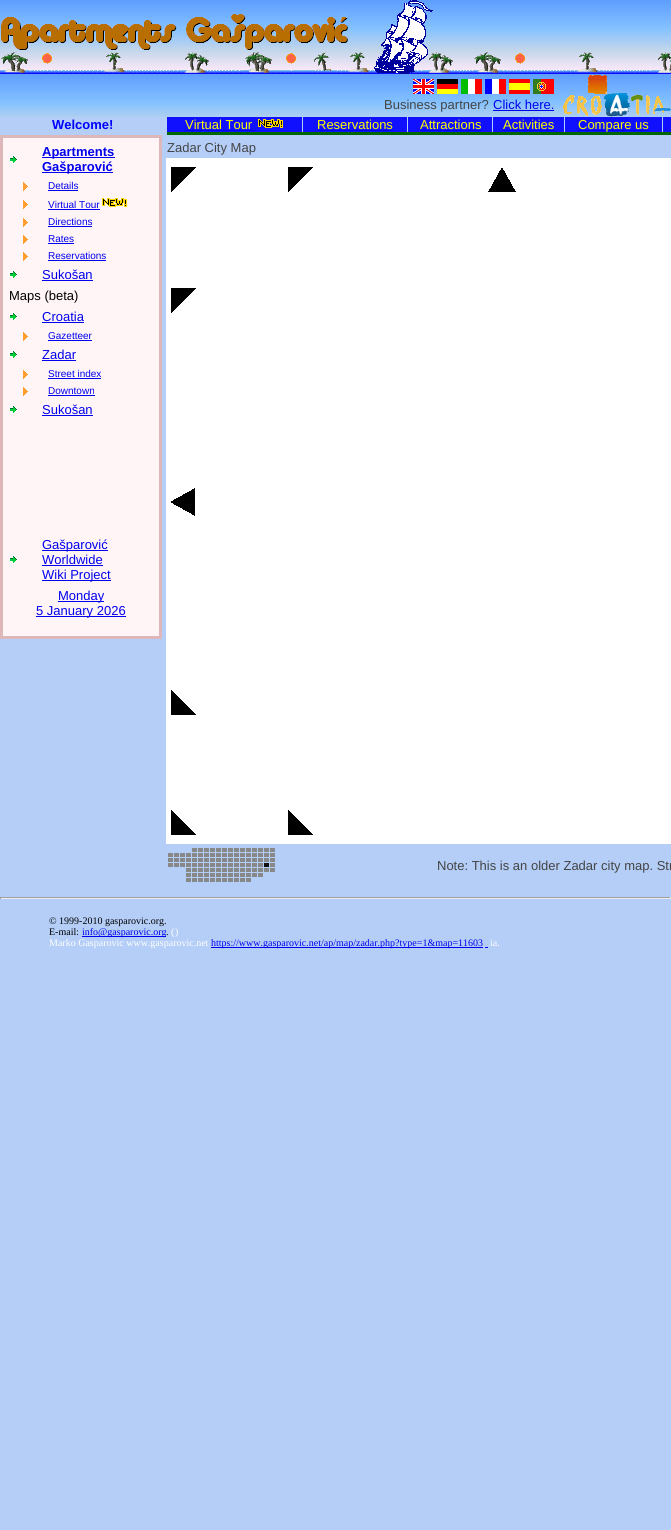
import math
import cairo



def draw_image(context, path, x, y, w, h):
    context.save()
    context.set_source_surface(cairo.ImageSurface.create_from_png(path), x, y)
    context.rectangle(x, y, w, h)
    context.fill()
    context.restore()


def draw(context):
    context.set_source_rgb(180 / 255, 206 / 255, 247 / 255)
    context.paint()
    draw_image(context, "images/1.png", 0, 0, 671, 117)
    draw_image(context, "images/2.png", 1, 0, 432, 74)
    draw_image(context, "images/3.png", 413, 79, 21, 15)
    draw_image(context, "images/4.png", 437, 79, 21, 15)
    draw_image(context, "images/5.png", 461, 79, 21, 15)
    draw_image(context, "images/6.png", 485, 79, 21, 15)
    draw_image(context, "images/7.png", 509, 79, 21, 15)
    draw_image(context, "images/8.png", 533, 79, 21, 15)
    context.set_source_rgb(0, 0, 238 / 255)
    context.rectangle(493, 110, 61, 1)
    context.fill()
    draw_image(context, "images/9.png", 563, 75, 108, 42)
    context.set_source_rgb(16 / 255, 16 / 255, 1)
    context.rectangle(167, 117, 135, 15)
    context.fill()
    context.set_source_rgb(0, 0, 238 / 255)
    context.rectangle(185, 130, 71, 1)
    context.fill()
    draw_image(context, "images/10.png", 258, 119, 25, 9)
    context.set_source_rgb(16 / 255, 16 / 255, 1)
    context.rectangle(303, 117, 104, 15)
    context.fill()
    context.set_source_rgb(0, 0, 238 / 255)
    context.rectangle(317, 130, 76, 1)
    context.fill()
    context.set_source_rgb(16 / 255, 16 / 255, 1)
    context.rectangle(408, 117, 84, 15)
    context.fill()
    context.set_source_rgb(0, 0, 238 / 255)
    context.rectangle(420, 130, 61, 1)
    context.fill()
    context.set_source_rgb(16 / 255, 16 / 255, 1)
    context.rectangle(493, 117, 71, 15)
    context.fill()
    context.set_source_rgb(0, 0, 238 / 255)
    context.rectangle(503, 130, 51, 1)
    context.fill()
    context.set_source_rgb(16 / 255, 16 / 255, 1)
    context.rectangle(565, 117, 97, 15)
    context.fill()
    context.set_source_rgb(0, 0, 238 / 255)
    context.rectangle(578, 130, 71, 1)
    context.fill()
    context.set_source_rgb(16 / 255, 16 / 255, 1)
    context.rectangle(663, 117, 8, 15)
    context.fill()
    context.set_source_rgb(0, 102 / 255, 0)
    context.rectangle(167, 132, 504, 3)
    context.fill()
    context.set_source_rgb(221 / 255, 183 / 255, 186 / 255)
    context.rectangle(0, 135, 162, 504)
    context.fill()
    context.set_source_rgb(1, 245 / 255, 246 / 255)
    context.rectangle(3, 138, 156, 498)
    context.fill()
    draw_image(context, "images/11.png", 9, 155, 9, 9)
    context.set_source_rgb(0, 0, 238 / 255)
    context.rectangle(42, 157, 73, 1)
    context.fill()
    context.rectangle(42, 172, 71, 1)
    context.fill()
    draw_image(context, "images/12.png", 23, 182, 5, 9)
    context.rectangle(48, 190, 30, 1)
    context.fill()
    draw_image(context, "images/12.png", 23, 200, 5, 9)
    context.rectangle(48, 209, 52, 1)
    context.fill()
    draw_image(context, "images/13.png", 102, 198, 25, 9)
    draw_image(context, "images/12.png", 23, 218, 5, 9)
    context.rectangle(48, 226, 44, 1)
    context.fill()
    draw_image(context, "images/12.png", 23, 235, 5, 9)
    context.rectangle(48, 243, 26, 1)
    context.fill()
    draw_image(context, "images/12.png", 23, 252, 5, 9)
    context.rectangle(48, 260, 58, 1)
    context.fill()
    draw_image(context, "images/11.png", 9, 270, 9, 9)
    context.rectangle(42, 280, 51, 1)
    context.fill()
    draw_image(context, "images/11.png", 9, 312, 9, 9)
    context.rectangle(42, 322, 42, 1)
    context.fill()
    draw_image(context, "images/12.png", 23, 332, 5, 9)
    context.rectangle(48, 340, 44, 1)
    context.fill()
    draw_image(context, "images/11.png", 9, 350, 9, 9)
    context.rectangle(42, 360, 34, 1)
    context.fill()
    draw_image(context, "images/12.png", 23, 370, 5, 9)
    context.rectangle(48, 378, 53, 1)
    context.fill()
    draw_image(context, "images/12.png", 23, 387, 5, 9)
    context.rectangle(48, 395, 47, 1)
    context.fill()
    draw_image(context, "images/11.png", 9, 405, 9, 9)
    context.rectangle(42, 415, 51, 1)
    context.fill()
    draw_image(context, "images/11.png", 9, 555, 9, 9)
    context.rectangle(42, 550, 66, 1)
    context.fill()
    context.rectangle(42, 565, 61, 1)
    context.fill()
    context.rectangle(42, 580, 69, 1)
    context.fill()
    context.rectangle(58, 601, 46, 1)
    context.fill()
    context.rectangle(36, 616, 90, 1)
    context.fill()
    context.set_source_rgb(1, 1, 1)
    context.rectangle(166, 158, 505, 686)
    context.fill()
    draw_image(context, "images/14.png", 171, 167, 25, 25)
    draw_image(context, "images/14.png", 288, 167, 25, 25)
    draw_image(context, "images/15.png", 488, 168, 28, 24)
    draw_image(context, "images/14.png", 171, 288, 25, 25)
    draw_image(context, "images/16.png", 171, 488, 24, 28)
    draw_image(context, "images/17.png", 171, 690, 25, 25)
    draw_image(context, "images/17.png", 171, 810, 25, 25)
    draw_image(context, "images/17.png", 288, 810, 25, 25)
    context.set_source_rgb(136 / 255, 136 / 255, 136 / 255)
    context.rectangle(192, 848, 5, 4)
    context.fill()
    context.rectangle(198, 848, 5, 4)
    context.fill()
    context.rectangle(204, 848, 5, 4)
    context.fill()
    context.rectangle(210, 848, 5, 4)
    context.fill()
    context.rectangle(216, 848, 5, 4)
    context.fill()
    context.rectangle(222, 848, 5, 4)
    context.fill()
    context.rectangle(228, 848, 5, 4)
    context.fill()
    context.rectangle(234, 848, 5, 4)
    context.fill()
    context.rectangle(240, 848, 5, 4)
    context.fill()
    context.rectangle(246, 848, 5, 4)
    context.fill()
    context.rectangle(252, 848, 5, 4)
    context.fill()
    context.rectangle(258, 848, 5, 4)
    context.fill()
    context.rectangle(264, 848, 5, 4)
    context.fill()
    context.rectangle(270, 848, 5, 4)
    context.fill()
    context.rectangle(168, 853, 5, 4)
    context.fill()
    context.rectangle(174, 853, 5, 4)
    context.fill()
    context.rectangle(180, 853, 5, 4)
    context.fill()
    context.rectangle(186, 853, 5, 4)
    context.fill()
    context.rectangle(192, 853, 5, 4)
    context.fill()
    context.rectangle(198, 853, 5, 4)
    context.fill()
    context.rectangle(204, 853, 5, 4)
    context.fill()
    context.rectangle(210, 853, 5, 4)
    context.fill()
    context.rectangle(216, 853, 5, 4)
    context.fill()
    context.rectangle(222, 853, 5, 4)
    context.fill()
    context.rectangle(228, 853, 5, 4)
    context.fill()
    context.rectangle(234, 853, 5, 4)
    context.fill()
    context.rectangle(240, 853, 5, 4)
    context.fill()
    context.rectangle(246, 853, 5, 4)
    context.fill()
    context.rectangle(252, 853, 5, 4)
    context.fill()
    context.rectangle(258, 853, 5, 4)
    context.fill()
    context.rectangle(264, 853, 5, 4)
    context.fill()
    context.rectangle(270, 853, 5, 4)
    context.fill()
    context.rectangle(168, 858, 5, 4)
    context.fill()
    context.rectangle(174, 858, 5, 4)
    context.fill()
    context.rectangle(180, 858, 5, 4)
    context.fill()
    context.rectangle(186, 858, 5, 4)
    context.fill()
    context.rectangle(192, 858, 5, 4)
    context.fill()
    context.rectangle(198, 858, 5, 4)
    context.fill()
    context.rectangle(204, 858, 5, 4)
    context.fill()
    context.rectangle(210, 858, 5, 4)
    context.fill()
    context.rectangle(216, 858, 5, 4)
    context.fill()
    context.rectangle(222, 858, 5, 4)
    context.fill()
    context.rectangle(228, 858, 5, 4)
    context.fill()
    context.rectangle(234, 858, 5, 4)
    context.fill()
    context.rectangle(240, 858, 5, 4)
    context.fill()
    context.rectangle(246, 858, 5, 4)
    context.fill()
    context.rectangle(252, 858, 5, 4)
    context.fill()
    context.rectangle(258, 858, 5, 4)
    context.fill()
    context.rectangle(264, 858, 5, 4)
    context.fill()
    context.rectangle(270, 858, 5, 4)
    context.fill()
    context.rectangle(168, 863, 5, 4)
    context.fill()
    context.rectangle(174, 863, 5, 4)
    context.fill()
    context.rectangle(180, 863, 5, 4)
    context.fill()
    context.rectangle(186, 863, 5, 4)
    context.fill()
    context.rectangle(192, 863, 5, 4)
    context.fill()
    context.rectangle(198, 863, 5, 4)
    context.fill()
    context.rectangle(204, 863, 5, 4)
    context.fill()
    context.rectangle(210, 863, 5, 4)
    context.fill()
    context.rectangle(216, 863, 5, 4)
    context.fill()
    context.rectangle(222, 863, 5, 4)
    context.fill()
    context.rectangle(228, 863, 5, 4)
    context.fill()
    context.rectangle(234, 863, 5, 4)
    context.fill()
    context.rectangle(240, 863, 5, 4)
    context.fill()
    context.rectangle(246, 863, 5, 4)
    context.fill()
    context.rectangle(252, 863, 5, 4)
    context.fill()
    context.rectangle(258, 863, 5, 4)
    context.fill()
    context.set_source_rgb(17 / 255, 17 / 255, 17 / 255)
    context.rectangle(264, 863, 5, 4)
    context.fill()
    context.set_source_rgb(136 / 255, 136 / 255, 136 / 255)
    context.rectangle(270, 863, 5, 4)
    context.fill()
    context.rectangle(186, 868, 5, 4)
    context.fill()
    context.rectangle(192, 868, 5, 4)
    context.fill()
    context.rectangle(198, 868, 5, 4)
    context.fill()
    context.rectangle(204, 868, 5, 4)
    context.fill()
    context.rectangle(210, 868, 5, 4)
    context.fill()
    context.rectangle(216, 868, 5, 4)
    context.fill()
    context.rectangle(222, 868, 5, 4)
    context.fill()
    context.rectangle(228, 868, 5, 4)
    context.fill()
    context.rectangle(234, 868, 5, 4)
    context.fill()
    context.rectangle(240, 868, 5, 4)
    context.fill()
    context.rectangle(246, 868, 5, 4)
    context.fill()
    context.rectangle(252, 868, 5, 4)
    context.fill()
    context.rectangle(258, 868, 5, 4)
    context.fill()
    context.rectangle(264, 868, 5, 4)
    context.fill()
    context.rectangle(270, 868, 5, 4)
    context.fill()
    context.rectangle(186, 873, 5, 4)
    context.fill()
    context.rectangle(192, 873, 5, 4)
    context.fill()
    context.rectangle(198, 873, 5, 4)
    context.fill()
    context.rectangle(204, 873, 5, 4)
    context.fill()
    context.rectangle(210, 873, 5, 4)
    context.fill()
    context.rectangle(216, 873, 5, 4)
    context.fill()
    context.rectangle(222, 873, 5, 4)
    context.fill()
    context.rectangle(228, 873, 5, 4)
    context.fill()
    context.rectangle(234, 873, 5, 4)
    context.fill()
    context.rectangle(240, 873, 5, 4)
    context.fill()
    context.rectangle(246, 873, 5, 4)
    context.fill()
    context.rectangle(252, 873, 5, 4)
    context.fill()
    context.rectangle(258, 873, 5, 4)
    context.fill()
    context.rectangle(186, 878, 5, 4)
    context.fill()
    context.rectangle(192, 878, 5, 4)
    context.fill()
    context.rectangle(198, 878, 5, 4)
    context.fill()
    context.rectangle(204, 878, 5, 4)
    context.fill()
    context.rectangle(210, 878, 5, 4)
    context.fill()
    context.rectangle(216, 878, 5, 4)
    context.fill()
    context.rectangle(222, 878, 5, 4)
    context.fill()
    context.rectangle(228, 878, 5, 4)
    context.fill()
    context.rectangle(234, 878, 5, 4)
    context.fill()
    context.rectangle(240, 878, 5, 4)
    context.fill()
    context.rectangle(246, 878, 5, 4)
    context.fill()
    context.set_source_rgb(159 / 255, 159 / 255, 159 / 255)
    context.rectangle(0, 897, 671, 1)
    context.fill()
    context.set_source_rgb(238 / 255, 238 / 255, 238 / 255)
    context.rectangle(670, 897, 1, 2)
    context.fill()
    context.rectangle(0, 898, 671, 1)
    context.fill()
    context.set_source_rgb(159 / 255, 159 / 255, 159 / 255)
    context.rectangle(0, 897, 1, 2)
    context.fill()
    context.set_source_rgb(0, 0, 238 / 255)
    context.rectangle(82, 936, 84, 1)
    context.fill()
    context.rectangle(211, 947, 272, 1)
    context.fill()
    context.rectangle(485, 947, 3, 1)
    context.fill()
    context.select_font_face("Liberation Sans")
    context.set_font_size(13)
    context.set_source_rgb(68 / 255, 68 / 255, 68 / 255)
    context.move_to(384, 109)
    context.show_text("Business partner?")
    context.set_source_rgb(0, 0, 238 / 255)
    context.move_to(493, 109)
    context.show_text("Click here.")
    context.select_font_face("Liberation Sans", cairo.FontSlant.NORMAL, cairo.FontWeight.BOLD)
    context.set_source_rgb(0, 0, 1)
    context.move_to(52, 129)
    context.show_text("Welcome!")
    context.select_font_face("Liberation Sans")
    context.set_source_rgb(1, 1, 0)
    context.move_to(185, 129)
    context.show_text("Virtual Tour")
    context.move_to(317, 129)
    context.show_text("Reservations")
    context.move_to(420, 129)
    context.show_text("Attractions")
    context.move_to(503, 129)
    context.show_text("Activities")
    context.move_to(578, 129)
    context.show_text("Compare us")
    context.select_font_face("Liberation Sans", cairo.FontSlant.NORMAL, cairo.FontWeight.BOLD)
    context.set_source_rgb(0, 0, 238 / 255)
    context.move_to(42, 156)
    context.show_text("Apartments")
    context.move_to(42, 171)
    context.show_text("Gašparović")
    context.select_font_face("Liberation Sans")
    context.set_font_size(10)
    context.move_to(48, 189)
    context.show_text("Details")
    context.move_to(48, 208)
    context.show_text("Virtual Tour")
    context.move_to(48, 225)
    context.show_text("Directions")
    context.move_to(48, 242)
    context.show_text("Rates")
    context.move_to(48, 259)
    context.show_text("Reservations")
    context.set_font_size(13)
    context.move_to(42, 279)
    context.show_text("Sukošan")
    context.set_source_rgb(0, 0, 0)
    context.move_to(9, 300)
    context.show_text("Maps (beta)")
    context.set_source_rgb(0, 0, 238 / 255)
    context.move_to(42, 321)
    context.show_text("Croatia")
    context.set_font_size(10)
    context.move_to(48, 339)
    context.show_text("Gazetteer")
    context.set_font_size(13)
    context.move_to(42, 359)
    context.show_text("Zadar")
    context.set_font_size(10)
    context.move_to(48, 377)
    context.show_text("Street index")
    context.move_to(48, 394)
    context.show_text("Downtown")
    context.set_font_size(13)
    context.move_to(42, 414)
    context.show_text("Sukošan")
    context.move_to(42, 549)
    context.show_text("Gašparović")
    context.move_to(42, 564)
    context.show_text("Worldwide")
    context.move_to(42, 579)
    context.show_text("Wiki Project")
    context.move_to(58, 600)
    context.show_text("Monday")
    context.move_to(36, 615)
    context.show_text("5 January 2026")
    context.set_source_rgb(68 / 255, 68 / 255, 68 / 255)
    context.move_to(167, 152)
    context.show_text("Zadar City Map")
    context.move_to(437, 870)
    context.show_text("Note: This is an older Zadar city map. Str")
    context.select_font_face("Liberation Serif")
    context.set_font_size(10)
    context.set_source_rgb(0, 0, 0)
    context.move_to(49, 924)
    context.show_text("© 1999-2010 gasparovic.org.")
    context.move_to(49, 935)
    context.show_text("E-mail:")
    context.set_source_rgb(0, 0, 238 / 255)
    context.move_to(82, 935)
    context.show_text("info@gasparovic.org")
    context.set_source_rgb(0, 0, 0)
    context.move_to(166, 935)
    context.show_text(".")
    context.set_source_rgb(1, 1, 1)
    context.move_to(171, 935)
    context.show_text("(")
    context.move_to(175, 935)
    context.show_text(")")
    context.move_to(49, 946)
    context.show_text("Marko Gasparovic www.gasparovic.net")
    context.set_source_rgb(0, 0, 238 / 255)
    context.move_to(211, 946)
    context.show_text("https://www.gasparovic.net/ap/map/zadar.php?type=1&map=11603")
    context.set_source_rgb(1, 1, 1)
    context.move_to(490, 946)
    context.show_text("ia.")


surface = cairo.ImageSurface(cairo.Format.RGB24, 671, 1530)
context = cairo.Context(surface)
options = cairo.FontOptions()
options.set_hint_metrics(cairo.HintMetrics.OFF)
options.set_hint_style(cairo.HintStyle.NONE)
context.set_font_options(options)
context.set_miter_limit(4)
draw(context)
surface.write_to_png("out.png")
